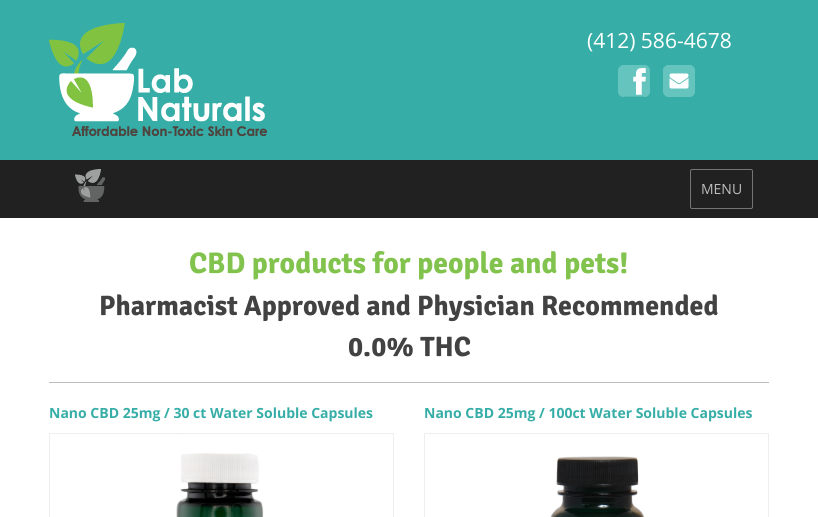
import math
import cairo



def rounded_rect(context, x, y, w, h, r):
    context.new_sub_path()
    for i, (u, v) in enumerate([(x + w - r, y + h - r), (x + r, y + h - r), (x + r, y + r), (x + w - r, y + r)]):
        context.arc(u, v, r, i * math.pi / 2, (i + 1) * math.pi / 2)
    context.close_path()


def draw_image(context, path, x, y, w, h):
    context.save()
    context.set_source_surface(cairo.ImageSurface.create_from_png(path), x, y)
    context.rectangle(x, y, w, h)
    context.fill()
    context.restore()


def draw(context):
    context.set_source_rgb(1, 1, 1)
    context.paint()
    context.set_source_rgb(54 / 255, 174 / 255, 167 / 255)
    context.rectangle(0, 0, 818, 160)
    context.fill()
    draw_image(context, "images/1.png", 49, 23, 218, 113)
    draw_image(context, "images/2.png", 618, 65, 32, 32)
    draw_image(context, "images/3.png", 663, 65, 32, 32)
    context.set_source_rgb(33 / 255, 33 / 255, 33 / 255)
    context.rectangle(0, 160, 818, 58)
    context.fill()
    draw_image(context, "images/4.png", 75, 169, 30, 33)
    rounded_rect(context, 690.5, 169.5, 62, 39, 1.5)
    context.set_source_rgb(117 / 255, 117 / 255, 117 / 255)
    context.set_line_width(1)
    context.stroke()
    context.set_source_rgb(189 / 255, 189 / 255, 189 / 255)
    context.rectangle(49, 382, 720, 1)
    context.fill()
    context.rectangle(49.5, 433.5, 344, 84)
    context.set_source_rgb(238 / 255, 238 / 255, 238 / 255)
    context.stroke()
    draw_image(context, "images/5.png", 176, 434, 88, 83)
    context.rectangle(424.5, 433.5, 344, 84)
    context.stroke()
    draw_image(context, "images/6.png", 550, 456, 95, 61)
    context.select_font_face("Open Sans")
    context.set_font_size(21)
    context.set_source_rgb(1, 1, 1)
    context.move_to(587, 48)
    context.show_text("(412) 586-4678")
    context.set_font_size(14)
    context.set_source_rgb(189 / 255, 189 / 255, 189 / 255)
    context.move_to(701, 194)
    context.show_text("MENU")
    context.select_font_face("Signika", cairo.FontSlant.NORMAL, cairo.FontWeight.BOLD)
    context.set_font_size(29.75)
    context.set_source_rgb(130 / 255, 195 / 255, 78 / 255)
    context.move_to(189, 273)
    context.show_text("CBD products for people and pets!")
    context.set_font_size(28)
    context.set_source_rgb(66 / 255, 66 / 255, 66 / 255)
    context.move_to(99, 315)
    context.show_text("Pharmacist Approved and Physician Recommended")
    context.move_to(348, 356)
    context.show_text("0.0% THC")
    context.select_font_face("Open Sans", cairo.FontSlant.NORMAL, cairo.FontWeight.BOLD)
    context.set_font_size(14)
    context.set_source_rgb(54 / 255, 174 / 255, 167 / 255)
    context.move_to(49, 418)
    context.show_text("Nano CBD 25mg / 30 ct Water Soluble Capsules")
    context.move_to(424, 418)
    context.show_text("Nano CBD 25mg / 100ct Water Soluble Capsules")


surface = cairo.ImageSurface(cairo.Format.RGB24, 818, 517)
context = cairo.Context(surface)
options = cairo.FontOptions()
options.set_hint_metrics(cairo.HintMetrics.OFF)
options.set_hint_style(cairo.HintStyle.NONE)
context.set_font_options(options)
context.set_miter_limit(4)
draw(context)
surface.write_to_png("out.png")
